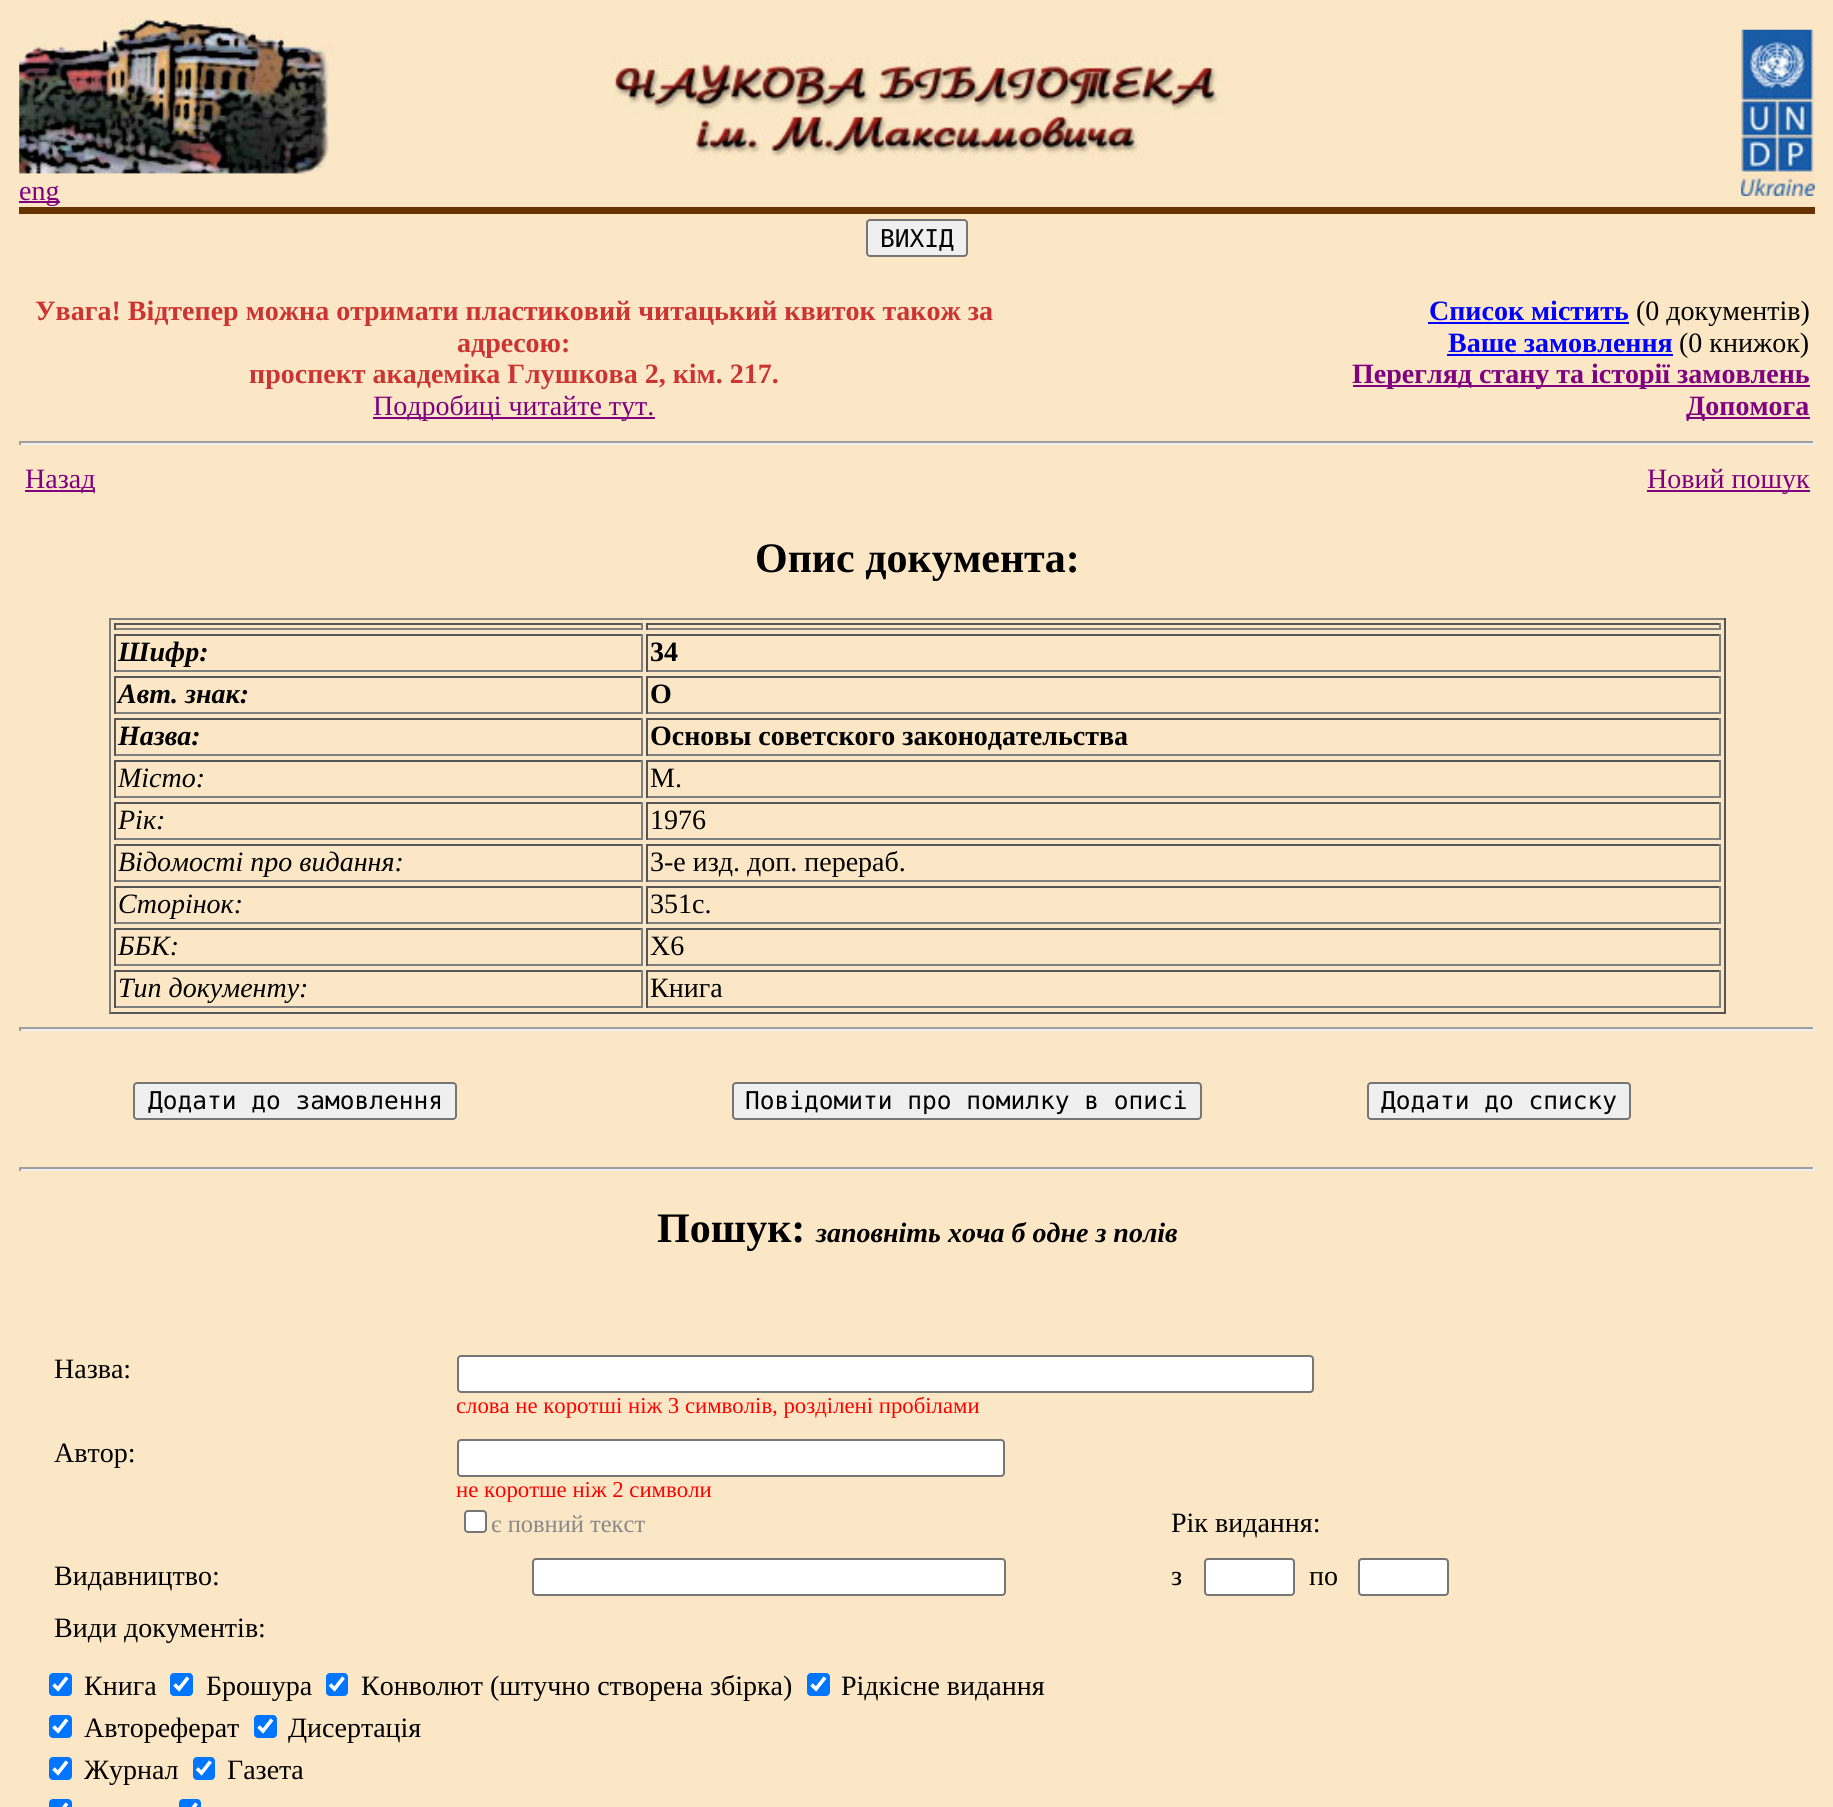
import math
import cairo



def rounded_rect(context, x, y, w, h, r):
    context.new_sub_path()
    for i, (u, v) in enumerate([(x + w - r, y + h - r), (x + r, y + h - r), (x + r, y + r), (x + w - r, y + r)]):
        context.arc(u, v, r, i * math.pi / 2, (i + 1) * math.pi / 2)
    context.close_path()


def draw_image(context, path, x, y, w, h):
    context.save()
    context.set_source_surface(cairo.ImageSurface.create_from_png(path), x, y)
    context.rectangle(x, y, w, h)
    context.fill()
    context.restore()


def draw(context):
    context.set_source_rgb(251 / 255, 231 / 255, 197 / 255)
    context.paint()
    draw_image(context, "images/1.png", 611, 58, 612, 99)
    draw_image(context, "images/2.png", 1741, 29, 74, 167)
    draw_image(context, "images/3.png", 19, 19, 314, 156)
    context.set_source_rgb(128 / 255, 0, 128 / 255)
    context.rectangle(19, 201, 41, 2)
    context.fill()
    context.set_source_rgb(102 / 255, 51 / 255, 0)
    context.rectangle(19, 207, 1796, 7)
    context.fill()
    context.set_source_rgb(239 / 255, 239 / 255, 239 / 255)
    rounded_rect(context, 867, 220, 100, 36, 3)
    context.fill_preserve()
    context.set_source_rgb(118 / 255, 118 / 255, 118 / 255)
    context.stroke()
    context.set_source_rgb(128 / 255, 0, 128 / 255)
    context.rectangle(373, 417, 282, 2)
    context.fill()
    context.set_source_rgb(0, 0, 1)
    context.rectangle(1428, 322, 201, 2)
    context.fill()
    context.rectangle(1447, 354, 226, 2)
    context.fill()
    context.set_source_rgb(128 / 255, 0, 128 / 255)
    context.rectangle(1353, 385, 457, 2)
    context.fill()
    context.rectangle(1687, 417, 123, 2)
    context.fill()
    context.set_source_rgb(159 / 255, 159 / 255, 159 / 255)
    context.rectangle(19, 441, 1796, 2)
    context.fill()
    context.set_source_rgb(238 / 255, 238 / 255, 238 / 255)
    context.rectangle(1813, 441, 2, 4)
    context.fill()
    context.rectangle(19, 443, 1796, 2)
    context.fill()
    context.set_source_rgb(159 / 255, 159 / 255, 159 / 255)
    context.rectangle(19, 441, 2, 4)
    context.fill()
    context.set_source_rgb(128 / 255, 0, 128 / 255)
    context.rectangle(25, 490, 70, 2)
    context.fill()
    context.rectangle(1647, 490, 163, 2)
    context.fill()
    context.set_source_rgb(128 / 255, 128 / 255, 128 / 255)
    context.rectangle(109, 618, 1617, 2)
    context.fill()
    context.set_source_rgb(85 / 255, 85 / 255, 85 / 255)
    context.rectangle(1724, 618, 2, 395)
    context.fill()
    context.rectangle(109, 1012, 1617, 2)
    context.fill()
    context.set_source_rgb(128 / 255, 128 / 255, 128 / 255)
    context.rectangle(109, 618, 2, 395)
    context.fill()
    context.set_source_rgb(85 / 255, 85 / 255, 85 / 255)
    context.rectangle(114, 623, 528, 2)
    context.fill()
    context.set_source_rgb(128 / 255, 128 / 255, 128 / 255)
    context.rectangle(641, 623, 2, 7)
    context.fill()
    context.rectangle(114, 628, 528, 2)
    context.fill()
    context.set_source_rgb(85 / 255, 85 / 255, 85 / 255)
    context.rectangle(114, 623, 2, 7)
    context.fill()
    context.rectangle(646, 623, 1074, 2)
    context.fill()
    context.set_source_rgb(128 / 255, 128 / 255, 128 / 255)
    context.rectangle(1719, 623, 2, 7)
    context.fill()
    context.rectangle(646, 628, 1074, 2)
    context.fill()
    context.set_source_rgb(85 / 255, 85 / 255, 85 / 255)
    context.rectangle(646, 623, 2, 7)
    context.fill()
    context.rectangle(114, 634, 528, 2)
    context.fill()
    context.set_source_rgb(128 / 255, 128 / 255, 128 / 255)
    context.rectangle(641, 634, 2, 38)
    context.fill()
    context.rectangle(114, 670, 528, 2)
    context.fill()
    context.set_source_rgb(85 / 255, 85 / 255, 85 / 255)
    context.rectangle(114, 634, 2, 38)
    context.fill()
    context.rectangle(646, 634, 1074, 2)
    context.fill()
    context.set_source_rgb(128 / 255, 128 / 255, 128 / 255)
    context.rectangle(1719, 634, 2, 38)
    context.fill()
    context.rectangle(646, 670, 1074, 2)
    context.fill()
    context.set_source_rgb(85 / 255, 85 / 255, 85 / 255)
    context.rectangle(646, 634, 2, 38)
    context.fill()
    context.rectangle(114, 676, 528, 2)
    context.fill()
    context.set_source_rgb(128 / 255, 128 / 255, 128 / 255)
    context.rectangle(641, 676, 2, 38)
    context.fill()
    context.rectangle(114, 712, 528, 2)
    context.fill()
    context.set_source_rgb(85 / 255, 85 / 255, 85 / 255)
    context.rectangle(114, 676, 2, 38)
    context.fill()
    context.rectangle(646, 676, 1074, 2)
    context.fill()
    context.set_source_rgb(128 / 255, 128 / 255, 128 / 255)
    context.rectangle(1719, 676, 2, 38)
    context.fill()
    context.rectangle(646, 712, 1074, 2)
    context.fill()
    context.set_source_rgb(85 / 255, 85 / 255, 85 / 255)
    context.rectangle(646, 676, 2, 38)
    context.fill()
    context.rectangle(114, 718, 528, 2)
    context.fill()
    context.set_source_rgb(128 / 255, 128 / 255, 128 / 255)
    context.rectangle(641, 718, 2, 38)
    context.fill()
    context.rectangle(114, 754, 528, 2)
    context.fill()
    context.set_source_rgb(85 / 255, 85 / 255, 85 / 255)
    context.rectangle(114, 718, 2, 38)
    context.fill()
    context.rectangle(646, 718, 1074, 2)
    context.fill()
    context.set_source_rgb(128 / 255, 128 / 255, 128 / 255)
    context.rectangle(1719, 718, 2, 38)
    context.fill()
    context.rectangle(646, 754, 1074, 2)
    context.fill()
    context.set_source_rgb(85 / 255, 85 / 255, 85 / 255)
    context.rectangle(646, 718, 2, 38)
    context.fill()
    context.rectangle(114, 760, 528, 2)
    context.fill()
    context.set_source_rgb(128 / 255, 128 / 255, 128 / 255)
    context.rectangle(641, 760, 2, 38)
    context.fill()
    context.rectangle(114, 796, 528, 2)
    context.fill()
    context.set_source_rgb(85 / 255, 85 / 255, 85 / 255)
    context.rectangle(114, 760, 2, 38)
    context.fill()
    context.rectangle(646, 760, 1074, 2)
    context.fill()
    context.set_source_rgb(128 / 255, 128 / 255, 128 / 255)
    context.rectangle(1719, 760, 2, 38)
    context.fill()
    context.rectangle(646, 796, 1074, 2)
    context.fill()
    context.set_source_rgb(85 / 255, 85 / 255, 85 / 255)
    context.rectangle(646, 760, 2, 38)
    context.fill()
    context.rectangle(114, 802, 528, 2)
    context.fill()
    context.set_source_rgb(128 / 255, 128 / 255, 128 / 255)
    context.rectangle(641, 802, 2, 38)
    context.fill()
    context.rectangle(114, 838, 528, 2)
    context.fill()
    context.set_source_rgb(85 / 255, 85 / 255, 85 / 255)
    context.rectangle(114, 802, 2, 38)
    context.fill()
    context.rectangle(646, 802, 1074, 2)
    context.fill()
    context.set_source_rgb(128 / 255, 128 / 255, 128 / 255)
    context.rectangle(1719, 802, 2, 38)
    context.fill()
    context.rectangle(646, 838, 1074, 2)
    context.fill()
    context.set_source_rgb(85 / 255, 85 / 255, 85 / 255)
    context.rectangle(646, 802, 2, 38)
    context.fill()
    context.rectangle(114, 844, 528, 2)
    context.fill()
    context.set_source_rgb(128 / 255, 128 / 255, 128 / 255)
    context.rectangle(641, 844, 2, 38)
    context.fill()
    context.rectangle(114, 880, 528, 2)
    context.fill()
    context.set_source_rgb(85 / 255, 85 / 255, 85 / 255)
    context.rectangle(114, 844, 2, 38)
    context.fill()
    context.rectangle(646, 844, 1074, 2)
    context.fill()
    context.set_source_rgb(128 / 255, 128 / 255, 128 / 255)
    context.rectangle(1719, 844, 2, 38)
    context.fill()
    context.rectangle(646, 880, 1074, 2)
    context.fill()
    context.set_source_rgb(85 / 255, 85 / 255, 85 / 255)
    context.rectangle(646, 844, 2, 38)
    context.fill()
    context.rectangle(114, 886, 528, 2)
    context.fill()
    context.set_source_rgb(128 / 255, 128 / 255, 128 / 255)
    context.rectangle(641, 886, 2, 38)
    context.fill()
    context.rectangle(114, 922, 528, 2)
    context.fill()
    context.set_source_rgb(85 / 255, 85 / 255, 85 / 255)
    context.rectangle(114, 886, 2, 38)
    context.fill()
    context.rectangle(646, 886, 1074, 2)
    context.fill()
    context.set_source_rgb(128 / 255, 128 / 255, 128 / 255)
    context.rectangle(1719, 886, 2, 38)
    context.fill()
    context.rectangle(646, 922, 1074, 2)
    context.fill()
    context.set_source_rgb(85 / 255, 85 / 255, 85 / 255)
    context.rectangle(646, 886, 2, 38)
    context.fill()
    context.rectangle(114, 928, 528, 2)
    context.fill()
    context.set_source_rgb(128 / 255, 128 / 255, 128 / 255)
    context.rectangle(641, 928, 2, 38)
    context.fill()
    context.rectangle(114, 964, 528, 2)
    context.fill()
    context.set_source_rgb(85 / 255, 85 / 255, 85 / 255)
    context.rectangle(114, 928, 2, 38)
    context.fill()
    context.rectangle(646, 928, 1074, 2)
    context.fill()
    context.set_source_rgb(128 / 255, 128 / 255, 128 / 255)
    context.rectangle(1719, 928, 2, 38)
    context.fill()
    context.rectangle(646, 964, 1074, 2)
    context.fill()
    context.set_source_rgb(85 / 255, 85 / 255, 85 / 255)
    context.rectangle(646, 928, 2, 38)
    context.fill()
    context.rectangle(114, 970, 528, 2)
    context.fill()
    context.set_source_rgb(128 / 255, 128 / 255, 128 / 255)
    context.rectangle(641, 970, 2, 38)
    context.fill()
    context.rectangle(114, 1006, 528, 2)
    context.fill()
    context.set_source_rgb(85 / 255, 85 / 255, 85 / 255)
    context.rectangle(114, 970, 2, 38)
    context.fill()
    context.rectangle(646, 970, 1074, 2)
    context.fill()
    context.set_source_rgb(128 / 255, 128 / 255, 128 / 255)
    context.rectangle(1719, 970, 2, 38)
    context.fill()
    context.rectangle(646, 1006, 1074, 2)
    context.fill()
    context.set_source_rgb(85 / 255, 85 / 255, 85 / 255)
    context.rectangle(646, 970, 2, 38)
    context.fill()
    context.set_source_rgb(159 / 255, 159 / 255, 159 / 255)
    context.rectangle(19, 1027, 1796, 2)
    context.fill()
    context.set_source_rgb(238 / 255, 238 / 255, 238 / 255)
    context.rectangle(1813, 1027, 2, 4)
    context.fill()
    context.rectangle(19, 1029, 1796, 2)
    context.fill()
    context.set_source_rgb(159 / 255, 159 / 255, 159 / 255)
    context.rectangle(19, 1027, 2, 4)
    context.fill()
    context.set_source_rgb(239 / 255, 239 / 255, 239 / 255)
    rounded_rect(context, 134, 1083, 322, 36, 3)
    context.fill_preserve()
    context.set_source_rgb(118 / 255, 118 / 255, 118 / 255)
    context.stroke()
    context.set_source_rgb(239 / 255, 239 / 255, 239 / 255)
    rounded_rect(context, 733, 1083, 468, 36, 3)
    context.fill_preserve()
    context.set_source_rgb(118 / 255, 118 / 255, 118 / 255)
    context.stroke()
    context.set_source_rgb(239 / 255, 239 / 255, 239 / 255)
    rounded_rect(context, 1368, 1083, 262, 36, 3)
    context.fill_preserve()
    context.set_source_rgb(118 / 255, 118 / 255, 118 / 255)
    context.stroke()
    context.set_source_rgb(159 / 255, 159 / 255, 159 / 255)
    context.rectangle(19, 1167, 1796, 2)
    context.fill()
    context.set_source_rgb(238 / 255, 238 / 255, 238 / 255)
    context.rectangle(1813, 1167, 2, 4)
    context.fill()
    context.rectangle(19, 1169, 1796, 2)
    context.fill()
    context.set_source_rgb(159 / 255, 159 / 255, 159 / 255)
    context.rectangle(19, 1167, 2, 4)
    context.fill()
    context.set_source_rgb(1, 1, 1)
    rounded_rect(context, 458, 1356, 855, 36, 3)
    context.fill_preserve()
    context.set_source_rgb(118 / 255, 118 / 255, 118 / 255)
    context.stroke()
    context.set_source_rgb(1, 1, 1)
    rounded_rect(context, 458, 1440, 546, 36, 3)
    context.fill_preserve()
    context.set_source_rgb(118 / 255, 118 / 255, 118 / 255)
    context.stroke()
    context.set_source_rgb(1, 1, 1)
    rounded_rect(context, 465, 1511, 21, 21, 3)
    context.fill_preserve()
    context.set_source_rgb(118 / 255, 118 / 255, 118 / 255)
    context.stroke()
    context.set_source_rgb(1, 1, 1)
    rounded_rect(context, 533, 1559, 472, 36, 3)
    context.fill_preserve()
    context.set_source_rgb(118 / 255, 118 / 255, 118 / 255)
    context.stroke()
    context.set_source_rgb(1, 1, 1)
    rounded_rect(context, 1205, 1559, 89, 36, 3)
    context.fill_preserve()
    context.set_source_rgb(118 / 255, 118 / 255, 118 / 255)
    context.stroke()
    context.set_source_rgb(1, 1, 1)
    rounded_rect(context, 1359, 1559, 89, 36, 3)
    context.fill_preserve()
    context.set_source_rgb(118 / 255, 118 / 255, 118 / 255)
    context.stroke()
    context.set_source_rgb(0, 117 / 255, 1)
    rounded_rect(context, 49, 1673, 23, 23, 4)
    context.fill()
    context.new_path()
    context.move_to(53.5, 1684.5)
    context.line_to(58, 1689)
    context.line_to(67, 1677.5)
    context.set_source_rgb(1, 1, 1)
    context.set_line_width(3.6)
    context.stroke()
    context.set_source_rgb(0, 117 / 255, 1)
    rounded_rect(context, 170, 1673, 23, 23, 4)
    context.fill()
    context.new_path()
    context.move_to(174.5, 1684.5)
    context.line_to(179, 1689)
    context.line_to(188, 1677.5)
    context.set_source_rgb(1, 1, 1)
    context.stroke()
    context.set_source_rgb(0, 117 / 255, 1)
    rounded_rect(context, 326, 1673, 22, 23, 4)
    context.fill()
    context.new_path()
    context.move_to(330, 1684.5)
    context.line_to(334.5, 1689)
    context.line_to(343.5, 1677.5)
    context.set_source_rgb(1, 1, 1)
    context.stroke()
    context.set_source_rgb(0, 117 / 255, 1)
    rounded_rect(context, 807, 1673, 23, 23, 4)
    context.fill()
    context.new_path()
    context.move_to(811.5, 1684.5)
    context.line_to(816, 1689)
    context.line_to(825, 1677.5)
    context.set_source_rgb(1, 1, 1)
    context.stroke()
    context.set_source_rgb(0, 117 / 255, 1)
    rounded_rect(context, 49, 1715, 23, 23, 4)
    context.fill()
    context.new_path()
    context.move_to(53.5, 1726.5)
    context.line_to(58, 1731)
    context.line_to(67, 1719.5)
    context.set_source_rgb(1, 1, 1)
    context.stroke()
    context.set_source_rgb(0, 117 / 255, 1)
    rounded_rect(context, 254, 1715, 23, 23, 4)
    context.fill()
    context.new_path()
    context.move_to(258.5, 1726.5)
    context.line_to(263, 1731)
    context.line_to(272, 1719.5)
    context.set_source_rgb(1, 1, 1)
    context.stroke()
    context.set_source_rgb(0, 117 / 255, 1)
    rounded_rect(context, 49, 1757, 23, 23, 4)
    context.fill()
    context.new_path()
    context.move_to(53.5, 1768.5)
    context.line_to(58, 1773)
    context.line_to(67, 1761.5)
    context.set_source_rgb(1, 1, 1)
    context.stroke()
    context.set_source_rgb(0, 117 / 255, 1)
    rounded_rect(context, 193, 1757, 22, 23, 4)
    context.fill()
    context.new_path()
    context.move_to(197, 1768.5)
    context.line_to(201.5, 1773)
    context.line_to(210.5, 1761.5)
    context.set_source_rgb(1, 1, 1)
    context.stroke()
    context.set_source_rgb(0, 117 / 255, 1)
    rounded_rect(context, 49, 1799, 23, 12, 4)
    context.fill()
    context.new_path()
    context.move_to(53.5, 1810.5)
    context.line_to(58, 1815)
    context.line_to(67, 1803.5)
    context.set_source_rgb(1, 1, 1)
    context.stroke()
    context.set_source_rgb(0, 117 / 255, 1)
    rounded_rect(context, 179, 1799, 22, 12, 4)
    context.fill()
    context.new_path()
    context.move_to(183, 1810.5)
    context.line_to(187.5, 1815)
    context.line_to(196.5, 1803.5)
    context.set_source_rgb(1, 1, 1)
    context.stroke()
    context.select_font_face("Liberation Serif")
    context.set_font_size(28)
    context.set_source_rgb(128 / 255, 0, 128 / 255)
    context.move_to(19, 200)
    context.show_text("eng")
    context.select_font_face("DejaVu Sans Mono")
    context.set_font_size(24.5)
    context.set_source_rgb(0, 0, 0)
    context.move_to(880, 247)
    context.show_text("ВИХІД")
    context.select_font_face("Liberation Serif", cairo.FontSlant.NORMAL, cairo.FontWeight.BOLD)
    context.set_font_size(28)
    context.set_source_rgb(204 / 255, 51 / 255, 51 / 255)
    context.move_to(35, 320)
    context.show_text("Увага! Відтепер можна отримати пластиковий читацький квиток також за")
    context.move_to(457, 352)
    context.show_text("адресою:")
    context.move_to(249, 383)
    context.show_text("проспект академіка Глушкова 2, кім. 217.")
    context.select_font_face("Liberation Serif")
    context.set_source_rgb(128 / 255, 0, 128 / 255)
    context.move_to(373, 415)
    context.show_text("Подробиці читайте тут.")
    context.select_font_face("Liberation Serif", cairo.FontSlant.NORMAL, cairo.FontWeight.BOLD)
    context.set_source_rgb(0, 0, 1)
    context.move_to(1429, 320)
    context.show_text("Список містить")
    context.select_font_face("Liberation Serif")
    context.set_source_rgb(0, 0, 0)
    context.move_to(1636, 320)
    context.show_text("(0 документів)")
    context.select_font_face("Liberation Serif", cairo.FontSlant.NORMAL, cairo.FontWeight.BOLD)
    context.set_source_rgb(0, 0, 1)
    context.move_to(1448, 352)
    context.show_text("Ваше замовлення")
    context.select_font_face("Liberation Serif")
    context.set_source_rgb(0, 0, 0)
    context.move_to(1679, 352)
    context.show_text("(0 книжок)")
    context.select_font_face("Liberation Serif", cairo.FontSlant.NORMAL, cairo.FontWeight.BOLD)
    context.set_source_rgb(128 / 255, 0, 128 / 255)
    context.move_to(1352, 383)
    context.show_text("Перегляд стану та історії замовлень")
    context.move_to(1686, 415)
    context.show_text("Допомога")
    context.select_font_face("Liberation Serif")
    context.move_to(25, 488)
    context.show_text("Назад")
    context.move_to(1647, 488)
    context.show_text("Новий пошук")
    context.select_font_face("Liberation Serif", cairo.FontSlant.NORMAL, cairo.FontWeight.BOLD)
    context.set_font_size(42)
    context.set_source_rgb(0, 0, 0)
    context.move_to(755, 572)
    context.show_text("Опис документа:")
    context.select_font_face("Liberation Serif", cairo.FontSlant.ITALIC, cairo.FontWeight.BOLD)
    context.set_font_size(28)
    context.move_to(118, 661)
    context.show_text("Шифр:")
    context.select_font_face("Liberation Serif", cairo.FontSlant.NORMAL, cairo.FontWeight.BOLD)
    context.move_to(650, 661)
    context.show_text("34")
    context.select_font_face("Liberation Serif", cairo.FontSlant.ITALIC, cairo.FontWeight.BOLD)
    context.move_to(118, 703)
    context.show_text("Авт. знак:")
    context.select_font_face("Liberation Serif", cairo.FontSlant.NORMAL, cairo.FontWeight.BOLD)
    context.move_to(650, 703)
    context.show_text("О")
    context.select_font_face("Liberation Serif", cairo.FontSlant.ITALIC, cairo.FontWeight.BOLD)
    context.move_to(118, 745)
    context.show_text("Назва:")
    context.select_font_face("Liberation Serif", cairo.FontSlant.NORMAL, cairo.FontWeight.BOLD)
    context.move_to(650, 745)
    context.show_text("Основы советского законодательства")
    context.select_font_face("Liberation Serif", cairo.FontSlant.ITALIC)
    context.move_to(118, 787)
    context.show_text("Місто:")
    context.select_font_face("Liberation Serif")
    context.move_to(650, 787)
    context.show_text("М.")
    context.select_font_face("Liberation Serif", cairo.FontSlant.ITALIC)
    context.move_to(118, 829)
    context.show_text("Рік:")
    context.select_font_face("Liberation Serif")
    context.move_to(650, 829)
    context.show_text("1976")
    context.select_font_face("Liberation Serif", cairo.FontSlant.ITALIC)
    context.move_to(118, 871)
    context.show_text("Відомості про видання:")
    context.select_font_face("Liberation Serif")
    context.move_to(650, 871)
    context.show_text("3-е изд. доп. перераб.")
    context.select_font_face("Liberation Serif", cairo.FontSlant.ITALIC)
    context.move_to(118, 913)
    context.show_text("Сторінок:")
    context.select_font_face("Liberation Serif")
    context.move_to(650, 913)
    context.show_text("351с.")
    context.select_font_face("Liberation Serif", cairo.FontSlant.ITALIC)
    context.move_to(118, 955)
    context.show_text("ББК:")
    context.select_font_face("Liberation Serif")
    context.move_to(650, 955)
    context.show_text("Х6")
    context.select_font_face("Liberation Serif", cairo.FontSlant.ITALIC)
    context.move_to(118, 997)
    context.show_text("Тип документу:")
    context.select_font_face("Liberation Serif")
    context.move_to(650, 997)
    context.show_text("Книга")
    context.select_font_face("DejaVu Sans Mono")
    context.set_font_size(24.5)
    context.move_to(148, 1109)
    context.show_text("Додати до замовлення")
    context.move_to(745, 1109)
    context.show_text("Повідомити про помилку в описі")
    context.move_to(1381, 1109)
    context.show_text("Додати до списку")
    context.select_font_face("Liberation Serif", cairo.FontSlant.NORMAL, cairo.FontWeight.BOLD)
    context.set_font_size(42)
    context.move_to(657, 1242)
    context.show_text("Пошук:")
    context.select_font_face("Liberation Serif", cairo.FontSlant.ITALIC, cairo.FontWeight.BOLD)
    context.set_font_size(28)
    context.move_to(816, 1242)
    context.show_text("заповніть хоча б одне з полів")
    context.select_font_face("Liberation Serif")
    context.move_to(54, 1378)
    context.show_text("Назва:")
    context.set_font_size(22.75)
    context.set_source_rgb(1, 0, 0)
    context.move_to(456, 1413)
    context.show_text("слова не коротші ніж 3 символів, розділені пробілами")
    context.set_font_size(28)
    context.set_source_rgb(0, 0, 0)
    context.move_to(54, 1462)
    context.show_text("Автор:")
    context.set_font_size(22.75)
    context.set_source_rgb(1, 0, 0)
    context.move_to(456, 1497)
    context.show_text("не коротше ніж 2 символи")
    context.set_font_size(24.5)
    context.set_source_rgb(136 / 255, 136 / 255, 136 / 255)
    context.move_to(491, 1532)
    context.show_text("є повний текст")
    context.set_font_size(28)
    context.set_source_rgb(0, 0, 0)
    context.move_to(1171, 1532)
    context.show_text("Рік видання:")
    context.move_to(54, 1585)
    context.show_text("Видавництво:")
    context.move_to(1171, 1585)
    context.show_text("з")
    context.move_to(1309, 1585)
    context.show_text("по")
    context.move_to(54, 1637)
    context.show_text("Види документів:")
    context.move_to(84, 1695)
    context.show_text("Книга")
    context.move_to(206, 1695)
    context.show_text("Брошура")
    context.move_to(361, 1695)
    context.show_text("Конволют (штучно створена збірка)")
    context.move_to(841, 1695)
    context.show_text("Рідкісне видання")
    context.move_to(84, 1737)
    context.show_text("Автореферат")
    context.move_to(288, 1737)
    context.show_text("Дисертація")
    context.move_to(84, 1779)
    context.show_text("Журнал")
    context.move_to(227, 1779)
    context.show_text("Газета")


surface = cairo.ImageSurface(cairo.Format.RGB24, 1833, 1807)
context = cairo.Context(surface)
options = cairo.FontOptions()
options.set_hint_metrics(cairo.HintMetrics.OFF)
options.set_hint_style(cairo.HintStyle.NONE)
context.set_font_options(options)
context.set_miter_limit(4)
draw(context)
surface.write_to_png("out.png")
